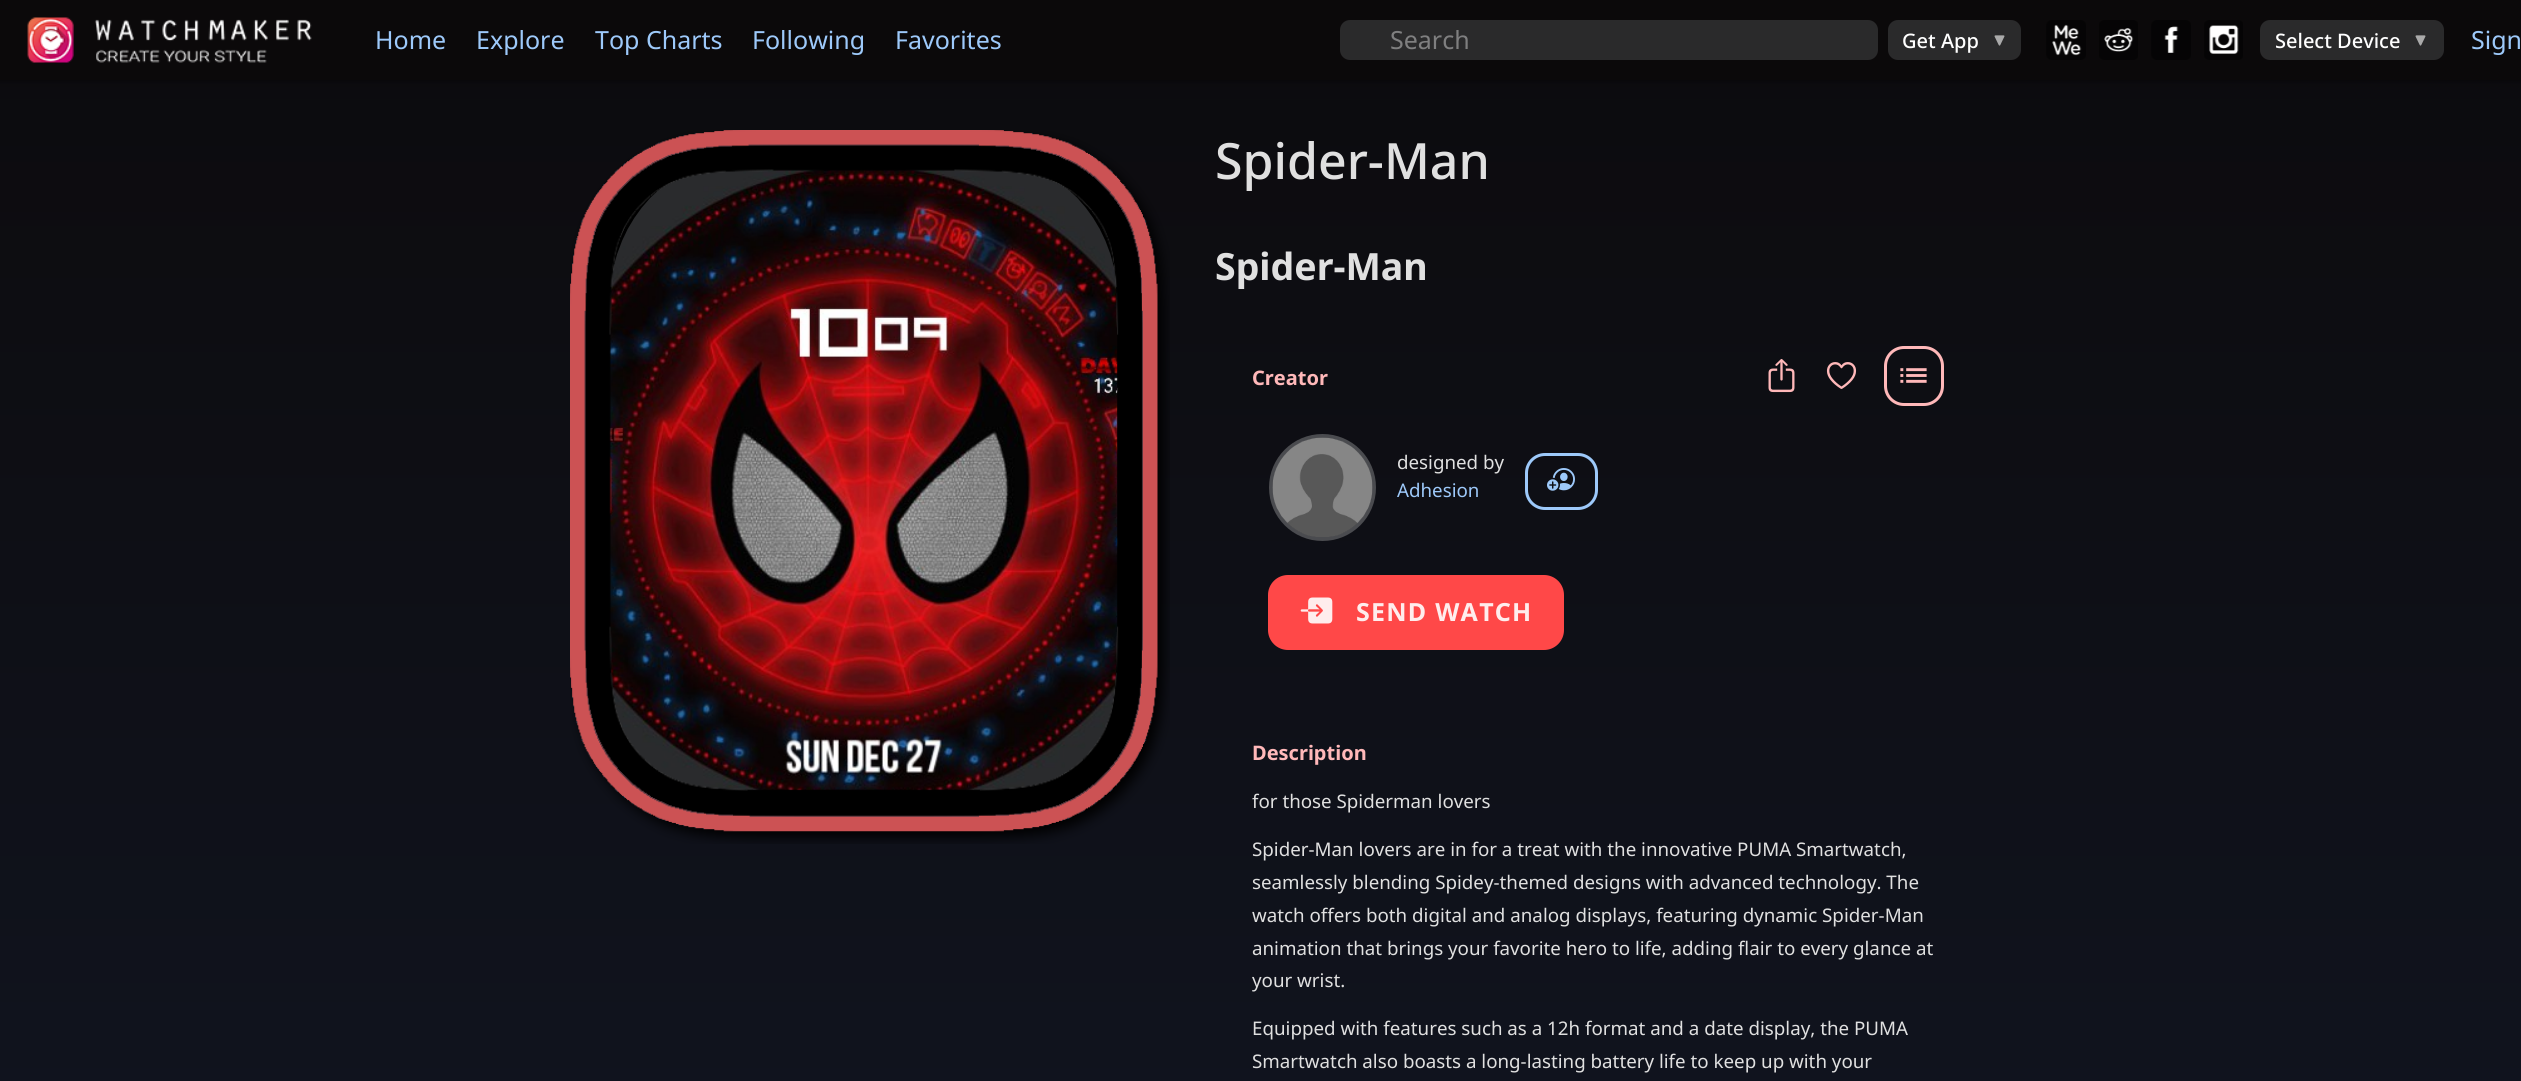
import math
import cairo



def draw_spaced(context, x, y, s, letter, word):
    context.move_to(x, y)
    for ch in s:
        context.show_text(ch)
        context.rel_move_to(letter + word * (ch == ' '), 0)


def rounded_rect(context, x, y, w, h, r):
    context.new_sub_path()
    for i, (u, v) in enumerate([(x + w - r, y + h - r), (x + r, y + h - r), (x + r, y + r), (x + w - r, y + r)]):
        context.arc(u, v, r, i * math.pi / 2, (i + 1) * math.pi / 2)
    context.close_path()


def draw_image(context, path, x, y, w, h):
    context.save()
    context.set_source_surface(cairo.ImageSurface.create_from_png(path), x, y)
    context.rectangle(x, y, w, h)
    context.fill()
    context.restore()


def draw(context):
    context.set_source_rgb(1, 1, 1)
    context.paint()
    context.set_source_rgb(11 / 255, 9 / 255, 10 / 255)
    context.rectangle(0, 0, 2521, 80)
    context.fill()
    gradient = cairo.LinearGradient(1261, 80, 1261, 90)
    gradient.add_color_stop_rgba(0, 9 / 255, 8 / 255, 11 / 255, 1)
    gradient.add_color_stop_rgba(0.4, 11 / 255, 10 / 255, 14 / 255, 1)
    gradient.add_color_stop_rgba(0.5, 12 / 255, 11 / 255, 14 / 255, 1)
    gradient.add_color_stop_rgba(0.9, 12 / 255, 11 / 255, 15 / 255, 1)
    gradient.add_color_stop_rgba(1, 12 / 255, 11 / 255, 15 / 255, 1)
    context.set_source(gradient)
    context.rectangle(0, 80, 2521, 10)
    context.fill()
    draw_image(context, "images/1.png", 27, 17, 285, 46)
    context.set_source_rgb(42 / 255, 42 / 255, 43 / 255)
    rounded_rect(context, 1340, 20, 538, 40, 10)
    context.fill()
    rounded_rect(context, 1888, 20, 133, 40, 10)
    context.fill()
    draw_image(context, "images/2.png", 2046, 20, 40, 40)
    draw_image(context, "images/3.png", 2099, 20, 39, 40)
    draw_image(context, "images/4.png", 2151, 20, 40, 40)
    draw_image(context, "images/5.png", 2204, 20, 39, 40)
    rounded_rect(context, 2260, 20, 184, 40, 10)
    context.fill()
    gradient = cairo.LinearGradient(1261, -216, 1261, 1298)
    gradient.add_color_stop_rgba(0, 11 / 255, 9 / 255, 10 / 255, 1)
    gradient.add_color_stop_rgba(1, 17 / 255, 21 / 255, 33 / 255, 1)
    context.set_source(gradient)
    context.rectangle(0, 90, 2521, 991)
    context.fill()
    draw_image(context, "images/6.png", 570, 130, 600, 714)
    draw_image(context, "images/8.png", 609, 169, 510, 622)
    draw_image(context, "images/7.png", 570, 130, 588, 702)
    rounded_rect(context, 1885.5, 347.5, 57, 57, 18.5)
    context.set_source_rgb(1, 184 / 255, 185 / 255)
    context.set_line_width(3)
    context.stroke()
    context.arc(1322.5, 487.5, 51.5, 0, 2 * math.pi)
    context.set_source_rgb(74 / 255, 75 / 255, 79 / 255)
    context.set_line_width(4)
    context.stroke()
    draw_image(context, "images/9.png", 1272, 437, 101, 100)
    rounded_rect(context, 1526.5, 454.5, 70, 54, 18.5)
    context.set_source_rgb(157 / 255, 201 / 255, 250 / 255)
    context.set_line_width(3)
    context.stroke()
    context.set_source_rgb(1, 72 / 255, 72 / 255)
    rounded_rect(context, 1268, 575, 296, 75, 20)
    context.fill()
    context.select_font_face("Noto Sans")
    context.set_font_size(25)
    context.set_source_rgb(157 / 255, 201 / 255, 250 / 255)
    context.move_to(375, 49)
    context.show_text("Home")
    context.move_to(476, 49)
    context.show_text("Explore")
    context.move_to(595, 49)
    context.show_text("Top Charts")
    context.move_to(752, 49)
    context.show_text("Following")
    context.move_to(895, 49)
    context.show_text("Favorites")
    context.set_source_rgb(127 / 255, 127 / 255, 128 / 255)
    context.move_to(1390, 49)
    context.show_text("Search")
    context.select_font_face("Noto Sans Medium")
    context.set_font_size(20)
    context.set_source_rgb(1, 1, 1)
    context.move_to(1902, 48)
    context.show_text("Get App")
    context.select_font_face("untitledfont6")
    context.set_font_size(15)
    context.set_source_rgb(170 / 255, 170 / 255, 170 / 255)
    context.move_to(1992, 48)
    context.show_text("E")
    context.select_font_face("Noto Sans Medium")
    context.set_font_size(20)
    context.set_source_rgb(1, 1, 1)
    context.move_to(2275, 48)
    context.show_text("Select Device")
    context.select_font_face("untitledfont6")
    context.set_font_size(15)
    context.set_source_rgb(170 / 255, 170 / 255, 170 / 255)
    context.move_to(2413, 48)
    context.show_text("E")
    context.select_font_face("Noto Sans")
    context.set_font_size(25)
    context.set_source_rgb(157 / 255, 201 / 255, 250 / 255)
    context.move_to(2471, 49)
    context.show_text("Sign")
    context.select_font_face("Noto Sans Medium")
    context.set_font_size(50)
    context.set_source_rgb(224 / 255, 224 / 255, 224 / 255)
    context.move_to(1215, 179)
    context.show_text("Spider-Man")
    context.select_font_face("Noto Sans", cairo.FontSlant.NORMAL, cairo.FontWeight.BOLD)
    context.set_font_size(37.5)
    context.move_to(1215, 280)
    context.show_text("Spider-Man")
    context.set_font_size(20)
    context.set_source_rgb(1, 184 / 255, 185 / 255)
    context.move_to(1252, 385)
    context.show_text("Creator")
    context.select_font_face("untitledfont6")
    context.set_font_size(35)
    context.move_to(1764, 393)
    context.show_text("i")
    context.move_to(1824, 393)
    context.show_text("b")
    context.move_to(1896, 393)
    context.show_text("X")
    context.select_font_face("Noto Sans")
    context.set_font_size(18.75)
    context.set_source_rgb(224 / 255, 224 / 255, 224 / 255)
    context.move_to(1397, 469)
    context.show_text("designed by")
    context.set_source_rgb(157 / 255, 201 / 255, 250 / 255)
    context.move_to(1397, 497)
    context.show_text("Adhesion")
    context.select_font_face("untitledfont6")
    context.set_font_size(28)
    context.move_to(1547, 493)
    context.show_text("G")
    context.set_font_size(35)
    context.set_source_rgb(1, 237 / 255, 237 / 255)
    context.move_to(1299, 628)
    context.show_text("Q")
    context.select_font_face("Noto Sans", cairo.FontSlant.NORMAL, cairo.FontWeight.BOLD)
    context.set_font_size(25)
    draw_spaced(context, 1356, 621, "SEND WATCH", 1.25, 0)
    context.set_font_size(20)
    context.set_source_rgb(1, 184 / 255, 185 / 255)
    context.move_to(1252, 760)
    context.show_text("Description")
    context.select_font_face("Noto Sans")
    context.set_font_size(18.75)
    context.set_source_rgb(224 / 255, 224 / 255, 224 / 255)
    context.move_to(1252, 808)
    context.show_text("for those Spiderman lovers")
    context.move_to(1252, 856)
    context.show_text("Spider-Man lovers are in for a treat with the innovative PUMA Smartwatch,")
    context.move_to(1252, 889)
    context.show_text("seamlessly blending Spidey-themed designs with advanced technology. The")
    context.move_to(1252, 922)
    context.show_text("watch offers both digital and analog displays, featuring dynamic Spider-Man")
    context.move_to(1252, 955)
    context.show_text("animation that brings your favorite hero to life, adding flair to every glance at")
    context.move_to(1252, 987)
    context.show_text("your wrist.")
    context.move_to(1252, 1035)
    context.show_text("Equipped with features such as a 12h format and a date display, the PUMA")
    context.move_to(1252, 1068)
    context.show_text("Smartwatch also boasts a long-lasting battery life to keep up with your")


surface = cairo.ImageSurface(cairo.Format.RGB24, 2521, 1081)
context = cairo.Context(surface)
options = cairo.FontOptions()
options.set_hint_metrics(cairo.HintMetrics.OFF)
options.set_hint_style(cairo.HintStyle.NONE)
context.set_font_options(options)
context.set_miter_limit(4)
draw(context)
surface.write_to_png("out.png")
